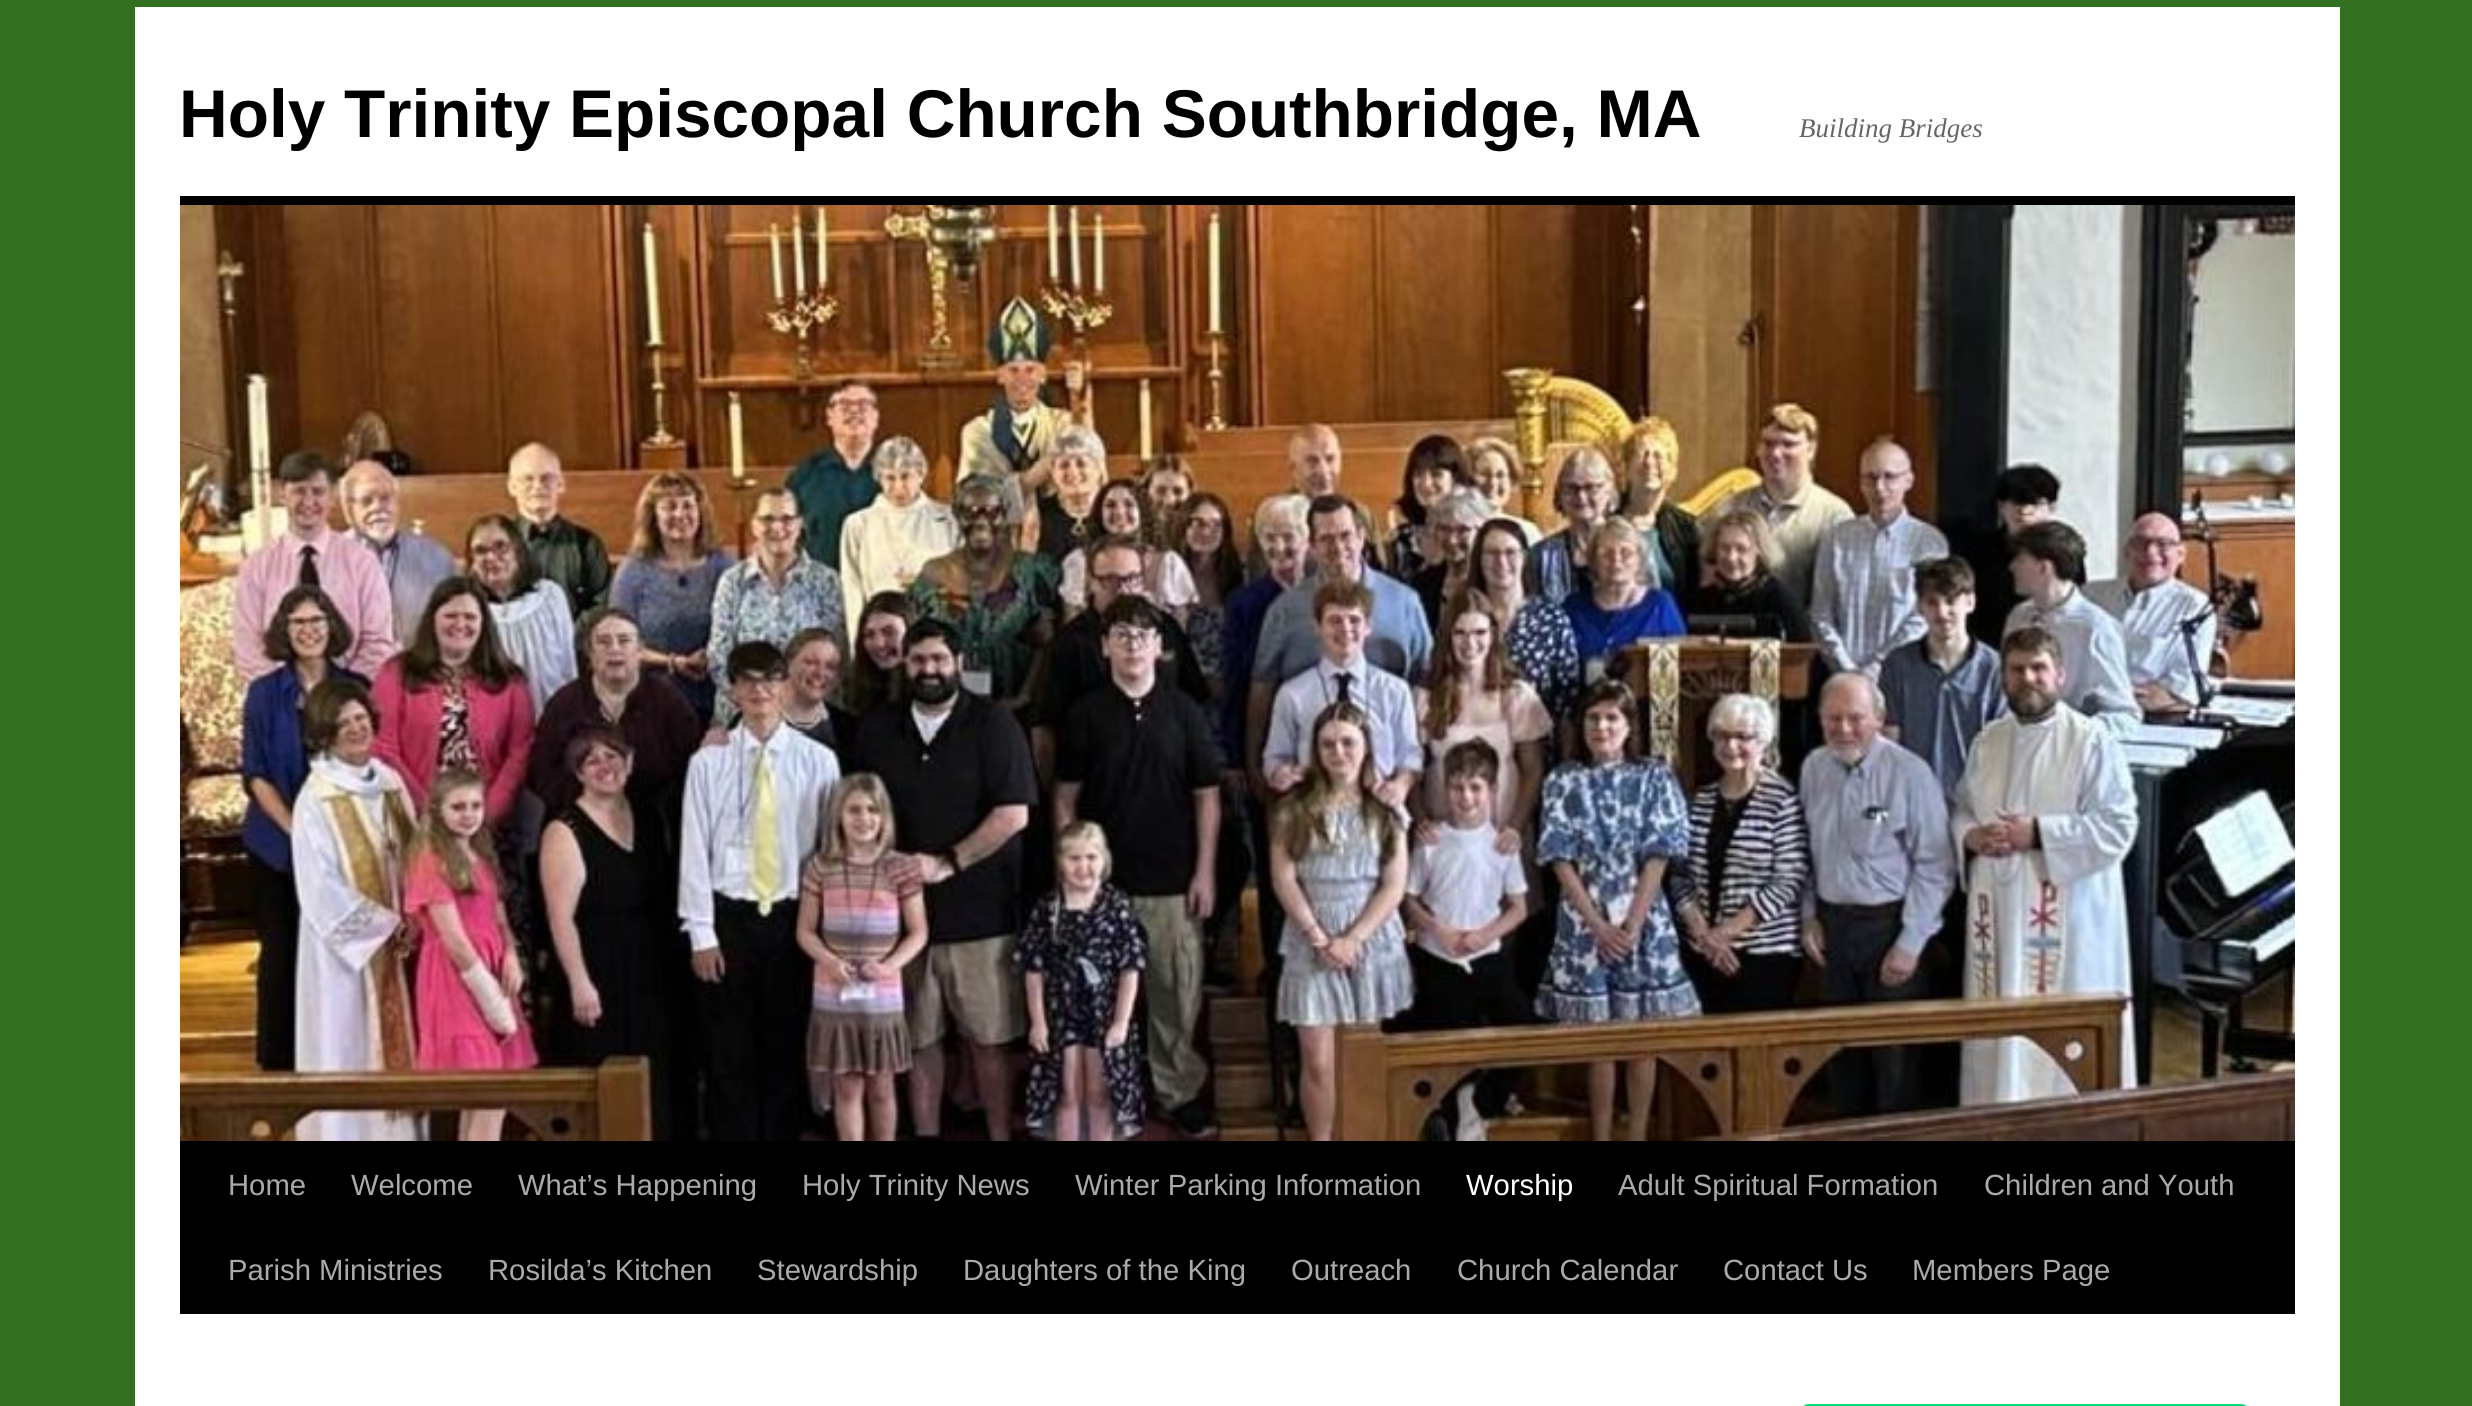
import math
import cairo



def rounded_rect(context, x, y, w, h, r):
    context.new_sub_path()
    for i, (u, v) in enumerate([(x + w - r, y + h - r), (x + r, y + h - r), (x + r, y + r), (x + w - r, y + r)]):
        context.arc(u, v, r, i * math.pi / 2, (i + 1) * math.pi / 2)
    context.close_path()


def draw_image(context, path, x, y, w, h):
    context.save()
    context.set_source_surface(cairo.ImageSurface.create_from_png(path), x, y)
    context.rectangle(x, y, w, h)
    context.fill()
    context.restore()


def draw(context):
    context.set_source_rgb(51 / 255, 112 / 255, 34 / 255)
    context.paint()
    context.set_source_rgb(1, 1, 1)
    context.rectangle(135, 7, 2205, 1399)
    context.fill()
    context.set_source_rgb(0, 0, 0)
    context.rectangle(180, 196, 2115, 9)
    context.fill()
    context.rectangle(180, 1141, 2115, 173)
    context.fill()
    draw_image(context, "images/1.png", 180, 205, 2115, 936)
    context.set_source_rgb(0, 219 / 255, 114 / 255)
    rounded_rect(context, 1800, 1404, 450, 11, 9)
    context.fill()
    context.select_font_face("Liberation Sans", cairo.FontSlant.NORMAL, cairo.FontWeight.BOLD)
    context.set_font_size(67.5)
    context.set_source_rgb(0, 0, 0)
    context.move_to(179, 137)
    context.show_text("Holy Trinity Episcopal Church Southbridge, MA")
    context.select_font_face("Liberation Serif", cairo.FontSlant.ITALIC)
    context.set_font_size(27)
    context.set_source_rgb(102 / 255, 102 / 255, 102 / 255)
    context.move_to(1799, 137)
    context.show_text("Building Bridges")
    context.select_font_face("Liberation Sans")
    context.set_font_size(29.25)
    context.set_source_rgb(170 / 255, 170 / 255, 170 / 255)
    context.move_to(228, 1195)
    context.show_text("Home")
    context.move_to(351, 1195)
    context.show_text("Welcome")
    context.move_to(518, 1195)
    context.show_text("What’s Happening")
    context.move_to(802, 1195)
    context.show_text("Holy Trinity News")
    context.move_to(1075, 1195)
    context.show_text("Winter Parking Information")
    context.set_source_rgb(1, 1, 1)
    context.move_to(1466, 1195)
    context.show_text("Worship")
    context.set_source_rgb(170 / 255, 170 / 255, 170 / 255)
    context.move_to(1618, 1195)
    context.show_text("Adult Spiritual Formation")
    context.move_to(1984, 1195)
    context.show_text("Children and Youth")
    context.move_to(228, 1280)
    context.show_text("Parish Ministries")
    context.move_to(488, 1280)
    context.show_text("Rosilda’s Kitchen")
    context.move_to(757, 1280)
    context.show_text("Stewardship")
    context.move_to(963, 1280)
    context.show_text("Daughters of the King")
    context.move_to(1291, 1280)
    context.show_text("Outreach")
    context.move_to(1457, 1280)
    context.show_text("Church Calendar")
    context.move_to(1723, 1280)
    context.show_text("Contact Us")
    context.move_to(1912, 1280)
    context.show_text("Members Page")


surface = cairo.ImageSurface(cairo.Format.RGB24, 2472, 1406)
context = cairo.Context(surface)
options = cairo.FontOptions()
options.set_hint_metrics(cairo.HintMetrics.OFF)
options.set_hint_style(cairo.HintStyle.NONE)
context.set_font_options(options)
context.set_miter_limit(4)
draw(context)
surface.write_to_png("out.png")
